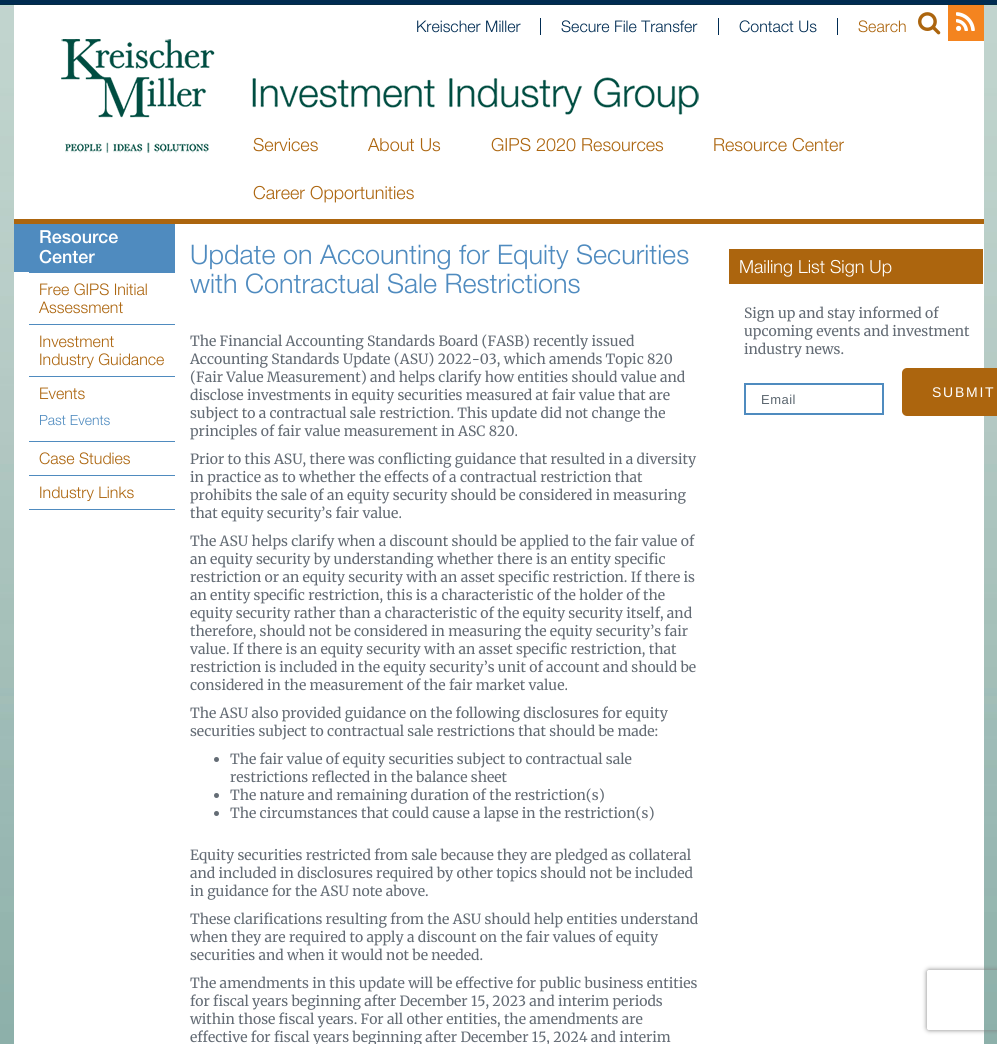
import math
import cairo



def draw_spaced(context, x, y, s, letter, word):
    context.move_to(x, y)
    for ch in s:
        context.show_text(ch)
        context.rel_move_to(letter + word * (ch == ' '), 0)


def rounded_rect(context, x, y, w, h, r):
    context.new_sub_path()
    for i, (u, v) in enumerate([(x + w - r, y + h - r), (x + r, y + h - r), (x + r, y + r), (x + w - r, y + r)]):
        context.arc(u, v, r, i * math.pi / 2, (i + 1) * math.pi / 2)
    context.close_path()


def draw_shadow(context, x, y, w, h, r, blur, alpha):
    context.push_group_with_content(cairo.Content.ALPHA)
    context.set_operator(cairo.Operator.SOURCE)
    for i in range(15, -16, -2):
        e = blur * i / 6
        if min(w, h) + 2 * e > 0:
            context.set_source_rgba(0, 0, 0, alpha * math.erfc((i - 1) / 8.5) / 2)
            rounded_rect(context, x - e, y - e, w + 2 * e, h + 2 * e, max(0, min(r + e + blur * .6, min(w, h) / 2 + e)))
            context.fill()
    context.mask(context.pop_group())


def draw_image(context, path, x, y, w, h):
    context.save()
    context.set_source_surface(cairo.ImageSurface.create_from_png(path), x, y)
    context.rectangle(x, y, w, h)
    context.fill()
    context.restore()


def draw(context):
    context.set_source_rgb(1, 1, 1)
    context.paint()
    draw_image(context, "images/1.png", 0, 0, 997, 1044)
    context.set_source_rgb(1, 1, 1)
    context.rectangle(14, 5, 970, 214)
    context.fill()
    context.set_source_rgb(172 / 255, 101 / 255, 14 / 255)
    context.rectangle(14, 219, 970, 5)
    context.fill()
    context.set_source_rgb(0, 44 / 255, 83 / 255)
    context.rectangle(540, 18, 1, 17)
    context.fill()
    context.rectangle(718, 18, 1, 17)
    context.fill()
    context.rectangle(837, 18, 1, 17)
    context.fill()
    draw_image(context, "images/2.png", 918, 12, 23, 23)
    context.set_source_rgb(244 / 255, 132 / 255, 31 / 255)
    context.rectangle(948, 5, 36, 36)
    context.fill()
    draw_image(context, "images/3.png", 956, 12, 19, 19)
    draw_image(context, "images/4.png", 61, 39, 638, 114)
    context.set_source_rgb(1, 1, 1)
    context.rectangle(14, 224, 970, 820)
    context.fill()
    context.set_source_rgb(79 / 255, 139 / 255, 191 / 255)
    context.rectangle(14, 224, 161, 48)
    context.fill()
    context.rectangle(29, 272, 146, 1)
    context.fill()
    context.rectangle(29, 324, 146, 1)
    context.fill()
    context.rectangle(29, 376, 146, 1)
    context.fill()
    context.rectangle(29, 441, 146, 1)
    context.fill()
    context.rectangle(29, 475, 146, 1)
    context.fill()
    context.rectangle(29, 509, 146, 1)
    context.fill()
    context.set_source_rgb(100 / 255, 108 / 255, 117 / 255)
    context.arc(216.5, 759.5, 2.5, 0, 2 * math.pi)
    context.fill()
    context.arc(216.5, 795.5, 2.5, 0, 2 * math.pi)
    context.fill()
    context.arc(216.5, 813.5, 2.5, 0, 2 * math.pi)
    context.fill()
    context.set_source_rgb(172 / 255, 101 / 255, 14 / 255)
    context.rectangle(729, 249, 254, 35)
    context.fill()
    rounded_rect(context, 902, 368, 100, 48, 5)
    context.fill()
    context.rectangle(745, 384, 138, 30)
    context.set_source_rgb(79 / 255, 139 / 255, 191 / 255)
    context.stroke()
    context.save()
    context.set_fill_rule(cairo.FillRule.EVEN_ODD)
    context.new_path()
    context.move_to(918, 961)
    context.line_to(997, 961)
    context.line_to(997, 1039)
    context.line_to(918, 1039)
    context.close_path()
    context.move_to(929, 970)
    context.line_to(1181, 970)
    context.curve_to(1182, 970, 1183, 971, 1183, 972)
    context.line_to(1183, 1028)
    context.curve_to(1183, 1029, 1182, 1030, 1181, 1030)
    context.line_to(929, 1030)
    context.curve_to(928, 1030, 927, 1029, 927, 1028)
    context.line_to(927, 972)
    context.curve_to(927, 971, 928, 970, 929, 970)
    context.close_path()
    context.clip()
    context.set_source_rgb(128 / 255, 128 / 255, 128 / 255)
    draw_shadow(context, 927, 970, 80, 60, 2, 2.5, 1)
    context.restore()
    context.select_font_face("Helvetica Neue Light")
    context.set_font_size(16)
    context.set_source_rgb(0, 44 / 255, 83 / 255)
    context.move_to(416, 32)
    context.show_text("Kreischer Miller")
    context.move_to(561, 32)
    context.show_text("Secure File Transfer")
    context.move_to(739, 32)
    context.show_text("Contact Us")
    context.set_source_rgb(172 / 255, 101 / 255, 14 / 255)
    context.move_to(858, 32)
    context.show_text("Search")
    context.set_font_size(18)
    context.move_to(253, 151)
    context.show_text("Services")
    context.move_to(368, 151)
    context.show_text("About Us")
    context.move_to(491, 151)
    context.show_text("GIPS 2020 Resources")
    context.move_to(713, 151)
    context.show_text("Resource Center")
    context.move_to(253, 199)
    context.show_text("Career Opportunities")
    context.select_font_face("Helvetica Neue Medium")
    context.set_source_rgb(1, 1, 1)
    context.move_to(39, 243)
    context.show_text("Resource")
    context.move_to(39, 263)
    context.show_text("Center")
    context.select_font_face("Helvetica Neue Light")
    context.set_font_size(16)
    context.set_source_rgb(172 / 255, 101 / 255, 14 / 255)
    context.move_to(39, 295)
    context.show_text("Free GIPS Initial")
    context.move_to(39, 313)
    context.show_text("Assessment")
    context.move_to(39, 347)
    context.show_text("Investment")
    context.move_to(39, 365)
    context.show_text("Industry Guidance")
    context.move_to(39, 399)
    context.show_text("Events")
    context.set_font_size(14)
    context.set_source_rgb(79 / 255, 139 / 255, 191 / 255)
    context.move_to(39, 425)
    context.show_text("Past Events")
    context.set_font_size(16)
    context.set_source_rgb(172 / 255, 101 / 255, 14 / 255)
    context.move_to(39, 464)
    context.show_text("Case Studies")
    context.move_to(39, 498)
    context.show_text("Industry Links")
    context.set_font_size(27)
    context.set_source_rgb(79 / 255, 139 / 255, 191 / 255)
    context.move_to(190, 264)
    context.show_text("Update on Accounting for Equity Securities")
    context.move_to(190, 293)
    context.show_text("with Contractual Sale Restrictions")
    context.select_font_face("Merriweather Light")
    context.set_font_size(14)
    context.set_source_rgb(100 / 255, 108 / 255, 117 / 255)
    context.move_to(190, 346)
    context.show_text("The Financial Accounting Standards Board (FASB) recently issued")
    context.move_to(190, 364)
    context.show_text("Accounting Standards Update (ASU) 2022-03, which amends Topic 820")
    context.move_to(190, 382)
    context.show_text("(Fair Value Measurement) and helps clarify how entities should value and")
    context.move_to(190, 400)
    context.show_text("disclose investments in equity securities measured at fair value that are")
    context.move_to(190, 418)
    context.show_text("subject to a contractual sale restriction. This update did not change the")
    context.move_to(190, 436)
    context.show_text("principles of fair value measurement in ASC 820.")
    context.move_to(190, 464)
    context.show_text("Prior to this ASU, there was conflicting guidance that resulted in a diversity")
    context.move_to(190, 482)
    context.show_text("in practice as to whether the effects of a contractual restriction that")
    context.move_to(190, 500)
    context.show_text("prohibits the sale of an equity security should be considered in measuring")
    context.move_to(190, 518)
    context.show_text("that equity security’s fair value.")
    context.move_to(190, 546)
    context.show_text("The ASU helps clarify when a discount should be applied to the fair value of")
    context.move_to(190, 564)
    context.show_text("an equity security by understanding whether there is an entity specific")
    context.move_to(190, 582)
    context.show_text("restriction or an equity security with an asset specific restriction. If there is")
    context.move_to(190, 600)
    context.show_text("an entity specific restriction, this is a characteristic of the holder of the")
    context.move_to(190, 618)
    context.show_text("equity security rather than a characteristic of the equity security itself, and")
    context.move_to(190, 636)
    context.show_text("therefore, should not be considered in measuring the equity security’s fair")
    context.move_to(190, 654)
    context.show_text("value. If there is an equity security with an asset specific restriction, that")
    context.move_to(190, 672)
    context.show_text("restriction is included in the equity security’s unit of account and should be")
    context.move_to(190, 690)
    context.show_text("considered in the measurement of the fair market value.")
    context.move_to(190, 718)
    context.show_text("The ASU also provided guidance on the following disclosures for equity")
    context.move_to(190, 736)
    context.show_text("securities subject to contractual sale restrictions that should be made:")
    context.move_to(230, 764)
    context.show_text("The fair value of equity securities subject to contractual sale")
    context.move_to(230, 782)
    context.show_text("restrictions reflected in the balance sheet")
    context.move_to(230, 800)
    context.show_text("The nature and remaining duration of the restriction(s)")
    context.move_to(230, 818)
    context.show_text("The circumstances that could cause a lapse in the restriction(s)")
    context.move_to(190, 860)
    context.show_text("Equity securities restricted from sale because they are pledged as collateral")
    context.move_to(190, 878)
    context.show_text("and included in disclosures required by other topics should not be included")
    context.move_to(190, 896)
    context.show_text("in guidance for the ASU note above.")
    context.move_to(190, 924)
    context.show_text("These clarifications resulting from the ASU should help entities understand")
    context.move_to(190, 942)
    context.show_text("when they are required to apply a discount on the fair values of equity")
    context.move_to(190, 960)
    context.show_text("securities and when it would not be needed.")
    context.move_to(190, 988)
    context.show_text("The amendments in this update will be effective for public business entities")
    context.move_to(190, 1006)
    context.show_text("for fiscal years beginning after December 15, 2023 and interim periods")
    context.move_to(190, 1024)
    context.show_text("within those fiscal years. For all other entities, the amendments are")
    context.move_to(190, 1042)
    context.show_text("effective for fiscal years beginning after December 15, 2024 and interim")
    context.select_font_face("Helvetica Neue Light")
    context.set_font_size(18)
    context.set_source_rgb(1, 1, 1)
    context.move_to(739, 273)
    context.show_text("Mailing List Sign Up")
    context.select_font_face("Merriweather Light")
    context.set_font_size(14)
    context.set_source_rgb(100 / 255, 108 / 255, 117 / 255)
    context.move_to(744, 318)
    context.show_text("Sign up and stay informed of")
    context.move_to(744, 336)
    context.show_text("upcoming events and investment")
    context.move_to(744, 354)
    context.show_text("industry news.")
    context.select_font_face("Liberation Sans")
    context.set_source_rgb(1, 1, 1)
    draw_spaced(context, 932, 397, "SUBMIT", 1.75, 0)
    context.set_font_size(13)
    context.set_source_rgb(91 / 255, 102 / 255, 111 / 255)
    draw_spaced(context, 761, 404, "Email", 0.5, 0)


surface = cairo.ImageSurface(cairo.Format.RGB24, 997, 1044)
context = cairo.Context(surface)
options = cairo.FontOptions()
options.set_hint_metrics(cairo.HintMetrics.OFF)
options.set_hint_style(cairo.HintStyle.NONE)
context.set_font_options(options)
context.set_miter_limit(4)
draw(context)
surface.write_to_png("out.png")
